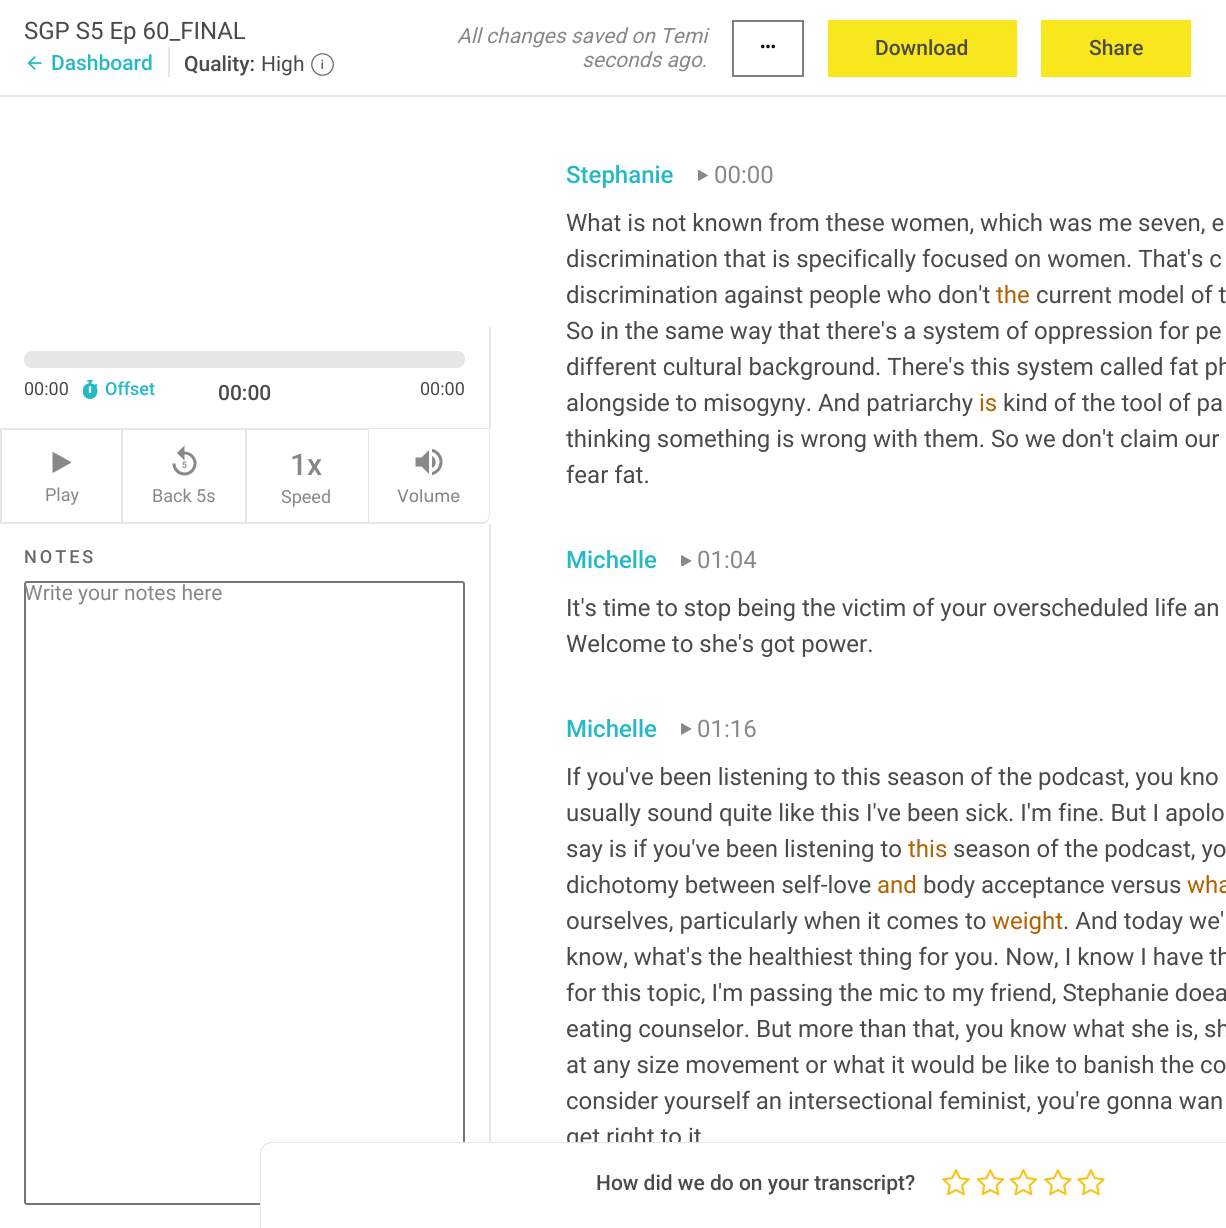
import math
import cairo



def draw_spaced(context, x, y, s, letter, word):
    context.move_to(x, y)
    for ch in s:
        context.show_text(ch)
        context.rel_move_to(letter + word * (ch == ' '), 0)


def rounded_rect(context, x, y, w, h, r):
    context.new_sub_path()
    for i, (u, v) in enumerate([(x + w - r, y + h - r), (x + r, y + h - r), (x + r, y + r), (x + w - r, y + r)]):
        context.arc(u, v, r, i * math.pi / 2, (i + 1) * math.pi / 2)
    context.close_path()


def draw_image(context, path, x, y, w, h):
    context.save()
    context.set_source_surface(cairo.ImageSurface.create_from_png(path), x, y)
    context.rectangle(x, y, w, h)
    context.fill()
    context.restore()


def draw(context):
    context.set_source_rgb(1, 1, 1)
    context.paint()
    context.set_source_rgb(230 / 255, 230 / 255, 230 / 255)
    context.rectangle(0, 95, 1226, 2)
    context.fill()
    draw_image(context, "images/1.png", 27, 56, 15, 14)
    context.rectangle(168, 47, 2, 30)
    context.fill()
    draw_image(context, "images/2.png", 311, 53, 23, 23)
    context.rectangle(733, 21, 70, 55)
    context.set_source_rgb(128 / 255, 128 / 255, 128 / 255)
    context.stroke()
    draw_image(context, "images/3.png", 761, 44, 14, 5)
    context.set_source_rgb(248 / 255, 231 / 255, 28 / 255)
    context.rectangle(828, 20, 189, 57)
    context.fill()
    context.rectangle(1041, 20, 150, 57)
    context.fill()
    context.set_source_rgb(230 / 255, 230 / 255, 230 / 255)
    context.rectangle(489, 327, 2, 101)
    context.fill()
    rounded_rect(context, 24, 351, 441, 17, 8)
    context.fill()
    draw_image(context, "images/4.png", 83, 380, 15, 19)
    context.rectangle(1, 429, 121, 94)
    context.stroke()
    draw_image(context, "images/5.png", 52, 452, 20, 21)
    context.rectangle(123, 428, 123, 2)
    context.fill()
    context.rectangle(245, 428, 2, 96)
    context.fill()
    context.rectangle(123, 522, 123, 2)
    context.fill()
    draw_image(context, "images/6.png", 172, 445, 25, 31)
    context.rectangle(246, 428, 123, 2)
    context.fill()
    context.rectangle(368, 428, 1, 96)
    context.fill()
    context.rectangle(246, 522, 123, 2)
    context.fill()
    context.set_fill_rule(cairo.FillRule.EVEN_ODD)
    context.new_path()
    context.move_to(369, 428)
    context.line_to(490, 428)
    context.line_to(490, 514)
    context.curve_to(490, 519, 486, 524, 482, 524)
    context.line_to(369, 524)
    context.close_path()
    context.move_to(369, 429)
    context.line_to(489, 429)
    context.line_to(489, 514)
    context.curve_to(489, 519, 486, 522, 482, 522)
    context.line_to(369, 522)
    context.close_path()
    context.fill()
    draw_image(context, "images/7.png", 415, 448, 28, 28)
    context.rectangle(489, 524, 2, 618)
    context.fill()
    rounded_rect(context, 25, 582, 439, 622, 2)
    context.set_source_rgb(118 / 255, 118 / 255, 118 / 255)
    context.stroke()
    draw_image(context, "images/8.png", 698, 170, 10, 12)
    draw_image(context, "images/9.png", 681, 555, 11, 11)
    draw_image(context, "images/10.png", 681, 723, 11, 12)
    context.select_font_face("Roboto")
    context.set_font_size(24)
    context.set_source_rgb(74 / 255, 74 / 255, 74 / 255)
    context.move_to(24, 39)
    context.show_text("SGP S5 Ep 60_FINAL")
    context.select_font_face("Roboto Medium")
    context.set_font_size(21)
    context.set_source_rgb(37 / 255, 185 / 255, 200 / 255)
    context.move_to(51, 70)
    context.show_text("Dashboard")
    context.set_source_rgb(74 / 255, 74 / 255, 74 / 255)
    context.move_to(184, 71)
    context.show_text("Quality:")
    context.select_font_face("Roboto")
    context.move_to(261, 71)
    context.show_text("High")
    context.select_font_face("Roboto", cairo.FontSlant.ITALIC)
    context.set_source_rgb(136 / 255, 136 / 255, 136 / 255)
    context.move_to(457, 43)
    context.show_text("All changes saved on Temi")
    context.move_to(582, 67)
    context.show_text("seconds ago.")
    context.select_font_face("Roboto Medium")
    context.set_source_rgb(74 / 255, 74 / 255, 74 / 255)
    context.move_to(875, 55)
    context.show_text("Download")
    context.move_to(1089, 55)
    context.show_text("Share")
    context.select_font_face("Roboto")
    context.set_font_size(18)
    context.move_to(24, 395)
    context.show_text("00:00")
    context.select_font_face("Roboto Medium")
    context.set_source_rgb(37 / 255, 185 / 255, 200 / 255)
    context.move_to(105, 395)
    context.show_text("Offset")
    context.set_font_size(21)
    context.set_source_rgb(74 / 255, 74 / 255, 74 / 255)
    context.move_to(218, 400)
    context.show_text("00:00")
    context.select_font_face("Roboto")
    context.set_font_size(18)
    context.move_to(420, 395)
    context.show_text("00:00")
    context.set_source_rgb(136 / 255, 136 / 255, 136 / 255)
    context.move_to(45, 501)
    context.show_text("Play")
    context.move_to(152, 502)
    context.show_text("Back 5s")
    context.select_font_face("Roboto Medium")
    context.set_font_size(30)
    context.move_to(290, 475)
    context.show_text("1x")
    context.select_font_face("Roboto")
    context.set_font_size(18)
    context.move_to(281, 503)
    context.show_text("Speed")
    context.select_font_face("Rubik")
    context.move_to(397, 502)
    context.show_text("Volume")
    context.select_font_face("Roboto Medium")
    context.set_source_rgb(106 / 255, 106 / 255, 106 / 255)
    draw_spaced(context, 24, 563, "NOTES", 3, 0)
    context.select_font_face("Roboto")
    context.set_font_size(21)
    context.set_source_rgb(136 / 255, 136 / 255, 136 / 255)
    context.move_to(24, 600)
    context.show_text("Write your notes here")
    context.select_font_face("Roboto Medium")
    context.set_font_size(24)
    context.set_source_rgb(37 / 255, 185 / 255, 200 / 255)
    context.move_to(566, 183)
    context.show_text("Stephanie")
    context.select_font_face("Roboto")
    context.set_source_rgb(136 / 255, 136 / 255, 136 / 255)
    context.move_to(714, 183)
    context.show_text("00:00")
    context.set_source_rgb(74 / 255, 74 / 255, 74 / 255)
    context.move_to(566, 231)
    context.show_text("What is not known from these women, which was me seven, e")
    context.move_to(566, 267)
    context.show_text("discrimination that is specifically focused on women. That's c")
    context.move_to(566, 303)
    context.show_text("discrimination against people who don't")
    context.set_source_rgb(180 / 255, 97 / 255, 0)
    context.move_to(996, 303)
    context.show_text("the")
    context.set_source_rgb(74 / 255, 74 / 255, 74 / 255)
    context.move_to(1036, 303)
    context.show_text("current model of t")
    context.move_to(566, 339)
    context.show_text("So in the same way that there's a system of oppression for pe")
    context.move_to(566, 375)
    context.show_text("different cultural background. There's this system called fat ph")
    context.move_to(566, 411)
    context.show_text("alongside to misogyny. And patriarchy")
    context.set_source_rgb(180 / 255, 97 / 255, 0)
    context.move_to(979, 411)
    context.show_text("is")
    context.set_source_rgb(74 / 255, 74 / 255, 74 / 255)
    context.move_to(1003, 411)
    context.show_text("kind of the tool of pa")
    context.move_to(566, 447)
    context.show_text("thinking something is wrong with them. So we don't claim our")
    context.move_to(566, 483)
    context.show_text("fear fat.")
    context.select_font_face("Roboto Medium")
    context.set_source_rgb(37 / 255, 185 / 255, 200 / 255)
    context.move_to(566, 568)
    context.show_text("Michelle")
    context.select_font_face("Roboto")
    context.set_source_rgb(136 / 255, 136 / 255, 136 / 255)
    context.move_to(697, 568)
    context.show_text("01:04")
    context.set_source_rgb(74 / 255, 74 / 255, 74 / 255)
    context.move_to(566, 616)
    context.show_text("It's time to stop being the victim of your overscheduled life an")
    context.move_to(566, 652)
    context.show_text("Welcome to she's got power.")
    context.select_font_face("Roboto Medium")
    context.set_source_rgb(37 / 255, 185 / 255, 200 / 255)
    context.move_to(566, 737)
    context.show_text("Michelle")
    context.select_font_face("Roboto")
    context.set_source_rgb(136 / 255, 136 / 255, 136 / 255)
    context.move_to(697, 737)
    context.show_text("01:16")
    context.set_source_rgb(74 / 255, 74 / 255, 74 / 255)
    context.move_to(566, 785)
    context.show_text("If you've been listening to this season of the podcast, you kno")
    context.move_to(566, 821)
    context.show_text("usually sound quite like this I've been sick. I'm fine. But I apolo")
    context.move_to(566, 857)
    context.show_text("say is if you've been listening to")
    context.set_source_rgb(180 / 255, 97 / 255, 0)
    context.move_to(908, 857)
    context.show_text("this")
    context.set_source_rgb(74 / 255, 74 / 255, 74 / 255)
    context.move_to(953, 857)
    context.show_text("season of the podcast, yo")
    context.move_to(566, 893)
    context.show_text("dichotomy between self-love")
    context.set_source_rgb(180 / 255, 97 / 255, 0)
    context.move_to(877, 893)
    context.show_text("and")
    context.set_source_rgb(74 / 255, 74 / 255, 74 / 255)
    context.move_to(923, 893)
    context.show_text("body acceptance versus")
    context.set_source_rgb(180 / 255, 97 / 255, 0)
    context.move_to(1187, 893)
    context.show_text("wha")
    context.set_source_rgb(74 / 255, 74 / 255, 74 / 255)
    context.move_to(566, 929)
    context.show_text("ourselves, particularly when it comes to")
    context.set_source_rgb(180 / 255, 97 / 255, 0)
    context.move_to(992, 929)
    context.show_text("weight")
    context.set_source_rgb(74 / 255, 74 / 255, 74 / 255)
    context.move_to(1063, 929)
    context.show_text(". And today we'")
    context.move_to(566, 965)
    context.show_text("know, what's the healthiest thing for you. Now, I know I have th")
    context.move_to(566, 1001)
    context.show_text("for this topic, I'm passing the mic to my friend, Stephanie doea")
    context.move_to(566, 1037)
    context.show_text("eating counselor. But more than that, you know what she is, sh")
    context.move_to(566, 1073)
    context.show_text("at any size movement or what it would be like to banish the co")
    context.move_to(566, 1109)
    context.show_text("consider yourself an intersectional feminist, you're gonna wan")
    context.move_to(566, 1145)
    context.show_text("get right to it")
    context.set_source_rgb(1, 1, 1)
    context.new_path()
    context.move_to(272, 1143)
    context.line_to(1226, 1143)
    context.curve_to(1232, 1143, 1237, 1148, 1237, 1154)
    context.line_to(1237, 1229)
    context.line_to(261, 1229)
    context.line_to(261, 1154)
    context.curve_to(261, 1148, 266, 1143, 272, 1143)
    context.close_path()
    context.fill()
    context.set_source_rgb(230 / 255, 230 / 255, 230 / 255)
    context.new_path()
    context.move_to(272, 1142)
    context.line_to(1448, 1142)
    context.curve_to(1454, 1142, 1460, 1147, 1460, 1154)
    context.line_to(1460, 1228)
    context.line_to(260, 1228)
    context.line_to(260, 1154)
    context.curve_to(260, 1147, 265, 1142, 272, 1142)
    context.close_path()
    context.move_to(272, 1143)
    context.line_to(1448, 1143)
    context.curve_to(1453, 1143, 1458, 1148, 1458, 1154)
    context.line_to(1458, 1228)
    context.line_to(261, 1228)
    context.line_to(261, 1154)
    context.curve_to(261, 1148, 266, 1143, 272, 1143)
    context.close_path()
    context.fill()
    context.select_font_face("Roboto Medium")
    context.set_font_size(21)
    context.set_source_rgb(74 / 255, 74 / 255, 74 / 255)
    context.move_to(596, 1190)
    context.show_text("How did we do on your transcript?")
    draw_image(context, "images/11.png", 942, 1168, 28, 28)
    draw_image(context, "images/12.png", 976, 1168, 29, 28)
    draw_image(context, "images/12.png", 1009, 1168, 29, 28)
    draw_image(context, "images/11.png", 1044, 1168, 28, 28)
    draw_image(context, "images/11.png", 1077, 1168, 28, 28)


surface = cairo.ImageSurface(cairo.Format.RGB24, 1226, 1228)
context = cairo.Context(surface)
options = cairo.FontOptions()
options.set_hint_metrics(cairo.HintMetrics.OFF)
options.set_hint_style(cairo.HintStyle.NONE)
context.set_font_options(options)
context.set_miter_limit(4)
draw(context)
surface.write_to_png("out.png")
